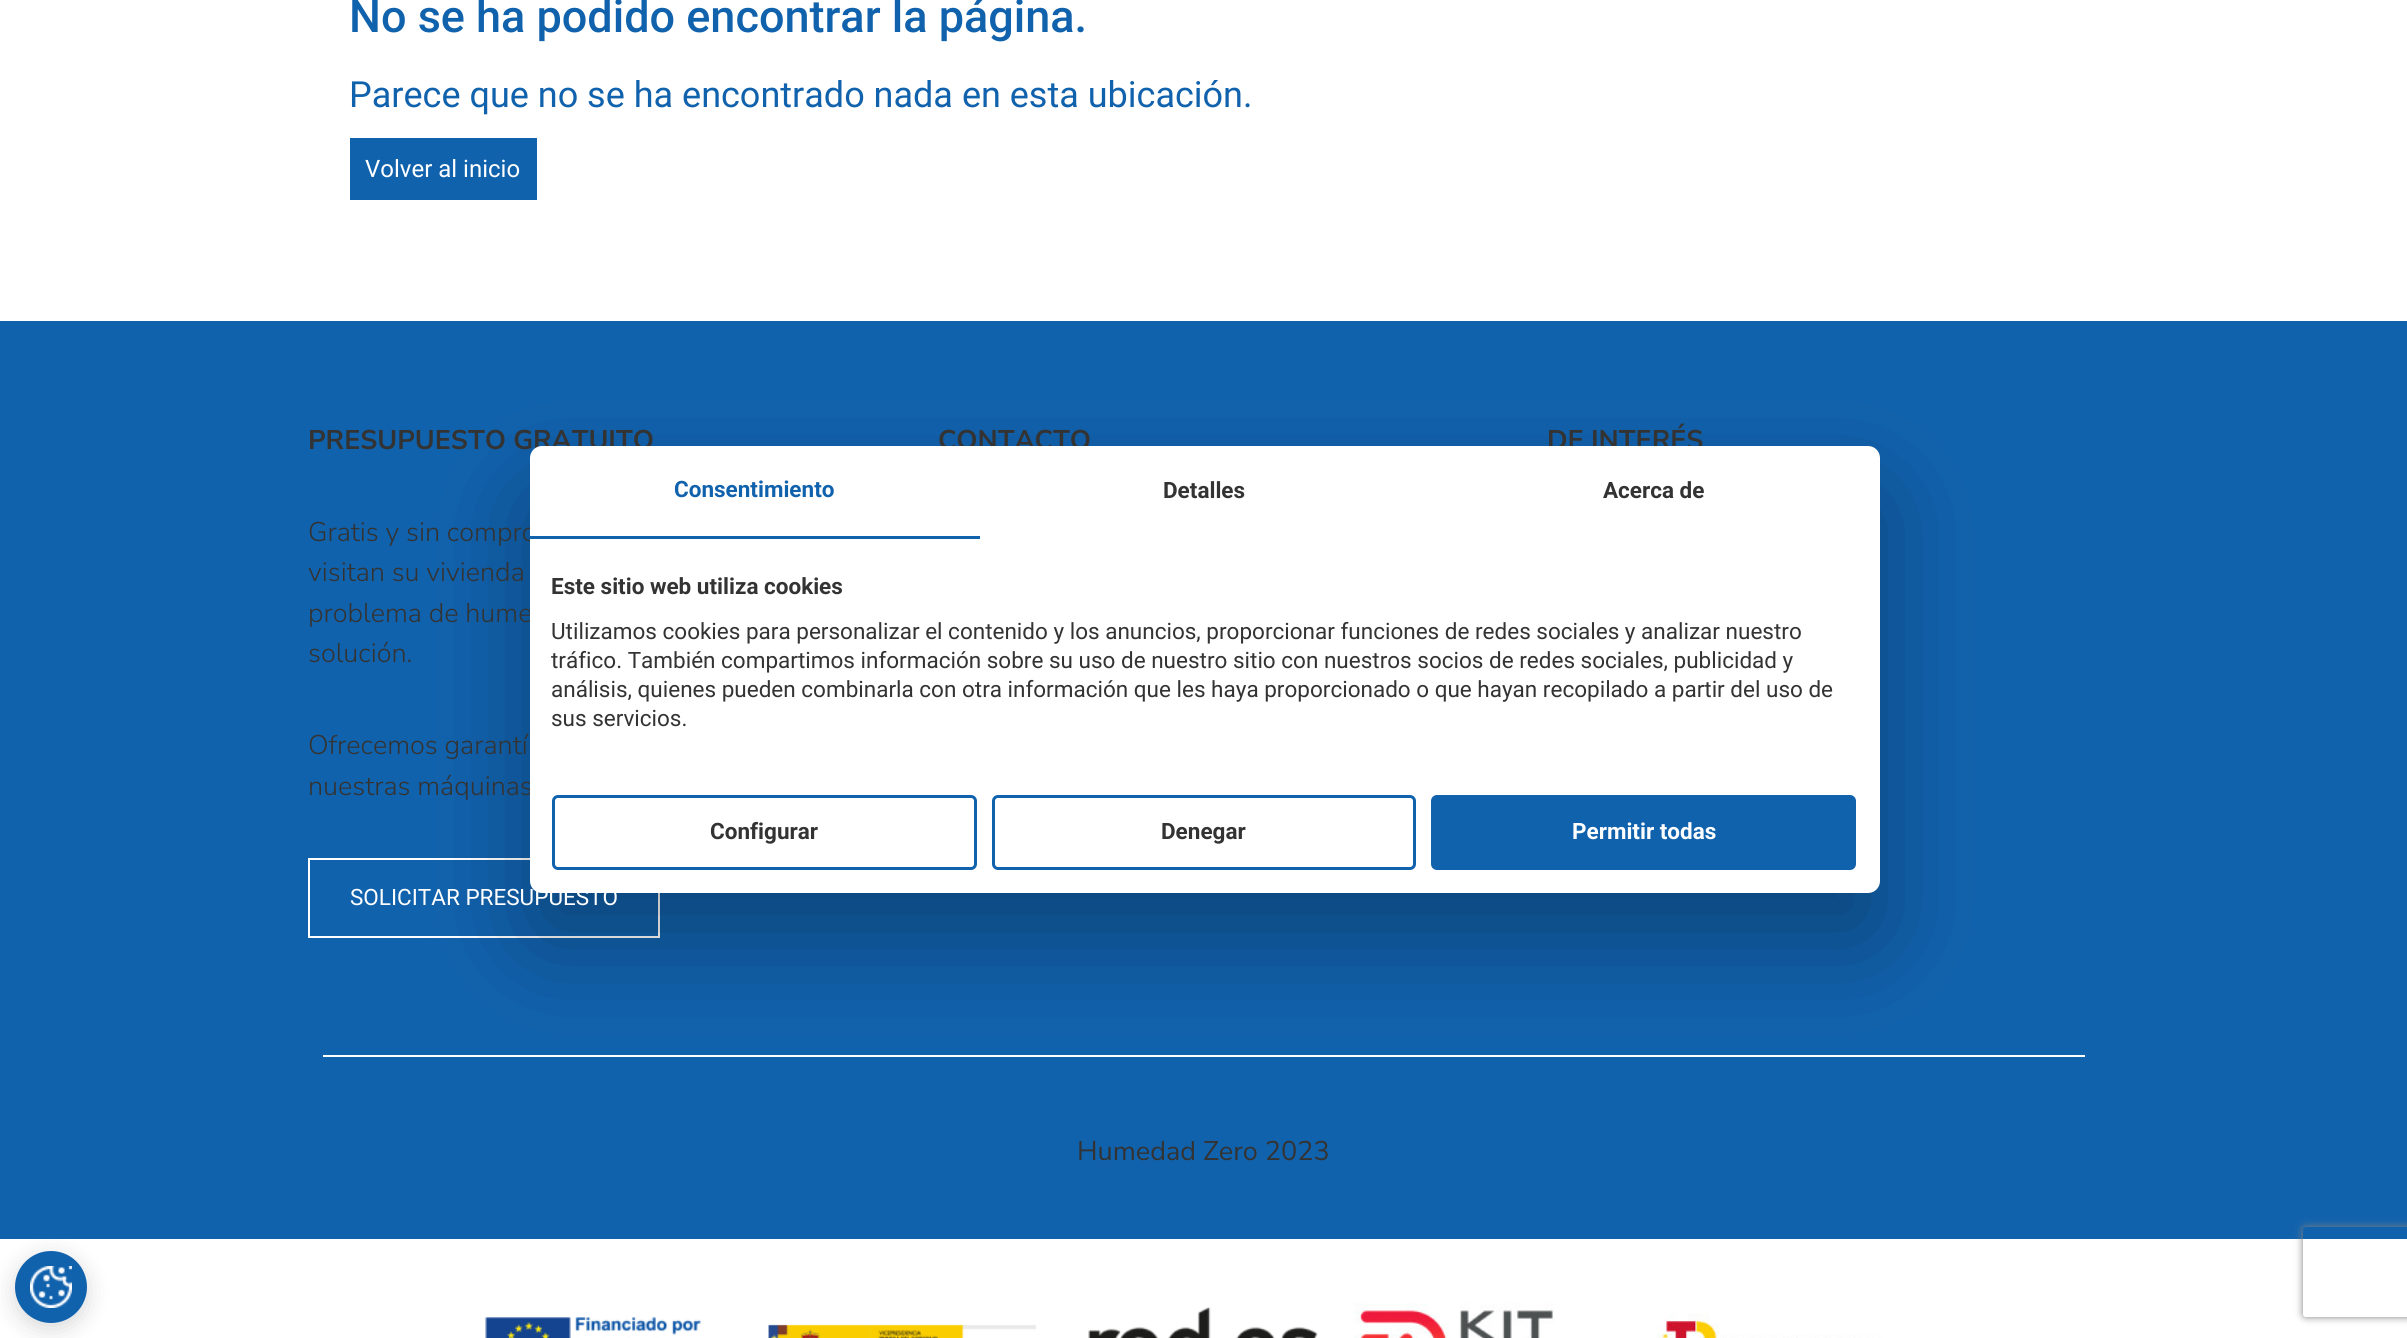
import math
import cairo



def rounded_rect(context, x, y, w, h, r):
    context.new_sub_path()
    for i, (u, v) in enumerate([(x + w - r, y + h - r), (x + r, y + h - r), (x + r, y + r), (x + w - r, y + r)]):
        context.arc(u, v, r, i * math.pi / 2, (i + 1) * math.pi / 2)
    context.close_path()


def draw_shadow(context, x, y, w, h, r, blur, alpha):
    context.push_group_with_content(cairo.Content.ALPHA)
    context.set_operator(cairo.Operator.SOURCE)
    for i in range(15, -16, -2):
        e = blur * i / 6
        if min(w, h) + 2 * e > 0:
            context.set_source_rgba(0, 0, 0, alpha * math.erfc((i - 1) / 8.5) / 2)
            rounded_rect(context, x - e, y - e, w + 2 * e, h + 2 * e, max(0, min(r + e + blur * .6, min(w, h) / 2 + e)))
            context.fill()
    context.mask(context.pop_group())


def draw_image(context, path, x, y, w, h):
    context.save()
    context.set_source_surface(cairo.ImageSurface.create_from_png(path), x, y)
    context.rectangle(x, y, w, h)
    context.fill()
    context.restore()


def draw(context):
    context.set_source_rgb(1, 1, 1)
    context.paint()
    context.set_source_rgb(17 / 255, 98 / 255, 173 / 255)
    context.rectangle(350, 138, 187, 62)
    context.fill()
    context.rectangle(0, 321, 2407, 918)
    context.fill()
    context.rectangle(309, 859, 350, 78)
    context.set_source_rgb(1, 1, 1)
    context.stroke()
    context.rectangle(323, 1055, 1762, 2)
    context.fill()
    draw_image(context, "images/1.png", 485, 1317, 216, 21)
    draw_image(context, "images/2.png", 768, 1324, 268, 14)
    draw_image(context, "images/3.png", 1088, 1306, 230, 32)
    draw_image(context, "images/4.png", 1354, 1303, 200, 35)
    draw_image(context, "images/5.png", 1656, 1313, 225, 25)
    context.set_source_rgb(0, 0, 0)
    draw_shadow(context, 530, 494, 1350, 447, 12, 51, 0.3)
    draw_shadow(context, 15, 1257, 72, 72, 36, 12, 0.15)
    context.set_source_rgb(17 / 255, 98 / 255, 173 / 255)
    context.arc(51, 1287, 36, 0, 2 * math.pi)
    context.fill()
    draw_image(context, "images/6.png", 30, 1266, 42, 42)
    context.save()
    context.set_fill_rule(cairo.FillRule.EVEN_ODD)
    context.new_path()
    context.move_to(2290, 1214)
    context.line_to(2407, 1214)
    context.line_to(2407, 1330)
    context.line_to(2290, 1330)
    context.close_path()
    context.move_to(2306, 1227)
    context.line_to(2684, 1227)
    context.curve_to(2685.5, 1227, 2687, 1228.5, 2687, 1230)
    context.line_to(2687, 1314)
    context.curve_to(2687, 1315.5, 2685.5, 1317, 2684, 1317)
    context.line_to(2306, 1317)
    context.curve_to(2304.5, 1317, 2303, 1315.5, 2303, 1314)
    context.line_to(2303, 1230)
    context.curve_to(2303, 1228.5, 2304.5, 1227, 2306, 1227)
    context.close_path()
    context.clip()
    context.set_source_rgb(128 / 255, 128 / 255, 128 / 255)
    draw_shadow(context, 2303, 1227, 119, 90, 3, 4, 1)
    context.restore()
    context.select_font_face("Roboto Medium")
    context.set_font_size(45)
    context.move_to(349, 32)
    context.show_text("No se ha podido encontrar la página.")
    context.select_font_face("Roboto")
    context.set_font_size(36)
    context.move_to(349, 107)
    context.show_text("Parece que no se ha encontrado nada en esta ubicación.")
    context.set_font_size(24)
    context.set_source_rgb(1, 1, 1)
    context.move_to(365, 177)
    context.show_text("Volver al inicio")
    context.select_font_face("Nunito Sans", cairo.FontSlant.NORMAL, cairo.FontWeight.BOLD)
    context.set_font_size(27)
    context.set_source_rgb(51 / 255, 51 / 255, 51 / 255)
    context.move_to(308, 449)
    context.show_text("PRESUPUESTO GRATUITO")
    context.select_font_face("Nunito Sans Light")
    context.move_to(308, 541)
    context.show_text("Gratis y sin compro")
    context.move_to(308, 581)
    context.show_text("visitan su vivienda")
    context.move_to(308, 622)
    context.show_text("problema de hume")
    context.move_to(308, 662)
    context.show_text("solución.")
    context.move_to(308, 754)
    context.show_text("Ofrecemos garantí")
    context.move_to(308, 795)
    context.show_text("nuestras máquinas")
    context.select_font_face("Roboto")
    context.set_font_size(22.5)
    context.set_source_rgb(1, 1, 1)
    context.move_to(350, 905)
    context.show_text("SOLICITAR PRESUPUESTO")
    context.select_font_face("Nunito Sans", cairo.FontSlant.NORMAL, cairo.FontWeight.BOLD)
    context.set_font_size(27)
    context.set_source_rgb(51 / 255, 51 / 255, 51 / 255)
    context.move_to(938, 449)
    context.show_text("CONTACTO")
    context.move_to(1547, 449)
    context.show_text("DE INTERÉS")
    context.select_font_face("Nunito Sans")
    context.move_to(1077, 1160)
    context.show_text("Humedad Zero 2023")
    context.set_source_rgb(1, 1, 1)
    rounded_rect(context, 530, 446, 1350, 447, 12)
    context.fill()
    context.set_source_rgb(17 / 255, 98 / 255, 173 / 255)
    context.rectangle(530, 536, 450, 3)
    context.fill()
    context.select_font_face("Roboto", cairo.FontSlant.NORMAL, cairo.FontWeight.BOLD)
    context.set_font_size(22.5)
    context.move_to(674, 497)
    context.show_text("Consentimiento")
    context.set_source_rgb(51 / 255, 51 / 255, 51 / 255)
    context.move_to(1163, 498)
    context.show_text("Detalles")
    context.move_to(1603, 498)
    context.show_text("Acerca de")
    context.move_to(551, 594)
    context.show_text("Este sitio web utiliza cookies")
    context.select_font_face("Roboto")
    context.move_to(551, 639)
    context.show_text("Utilizamos cookies para personalizar el contenido y los anuncios, proporcionar funciones de redes sociales y analizar nuestro")
    context.move_to(551, 668)
    context.show_text("tráfico. También compartimos información sobre su uso de nuestro sitio con nuestros socios de redes sociales, publicidad y")
    context.move_to(551, 697)
    context.show_text("análisis, quienes pueden combinarla con otra información que les haya proporcionado o que hayan recopilado a partir del uso de")
    context.move_to(551, 726)
    context.show_text("sus servicios.")
    rounded_rect(context, 553.5, 796.5, 422, 72, 4.5)
    context.set_source_rgb(17 / 255, 98 / 255, 173 / 255)
    context.set_line_width(3)
    context.stroke()
    context.select_font_face("Roboto", cairo.FontSlant.NORMAL, cairo.FontWeight.BOLD)
    context.set_source_rgb(51 / 255, 51 / 255, 51 / 255)
    context.move_to(710, 839)
    context.show_text("Configurar")
    rounded_rect(context, 993.5, 796.5, 421, 72, 4.5)
    context.set_source_rgb(17 / 255, 98 / 255, 173 / 255)
    context.stroke()
    context.set_source_rgb(51 / 255, 51 / 255, 51 / 255)
    context.move_to(1161, 839)
    context.show_text("Denegar")
    context.set_source_rgb(17 / 255, 98 / 255, 173 / 255)
    rounded_rect(context, 1432.5, 796.5, 422, 72, 4.5)
    context.fill_preserve()
    context.stroke()
    context.set_source_rgb(1, 1, 1)
    context.move_to(1572, 839)
    context.show_text("Permitir todas")


surface = cairo.ImageSurface(cairo.Format.RGB24, 2407, 1338)
context = cairo.Context(surface)
options = cairo.FontOptions()
options.set_hint_metrics(cairo.HintMetrics.OFF)
options.set_hint_style(cairo.HintStyle.NONE)
context.set_font_options(options)
context.set_miter_limit(4)
draw(context)
surface.write_to_png("out.png")
